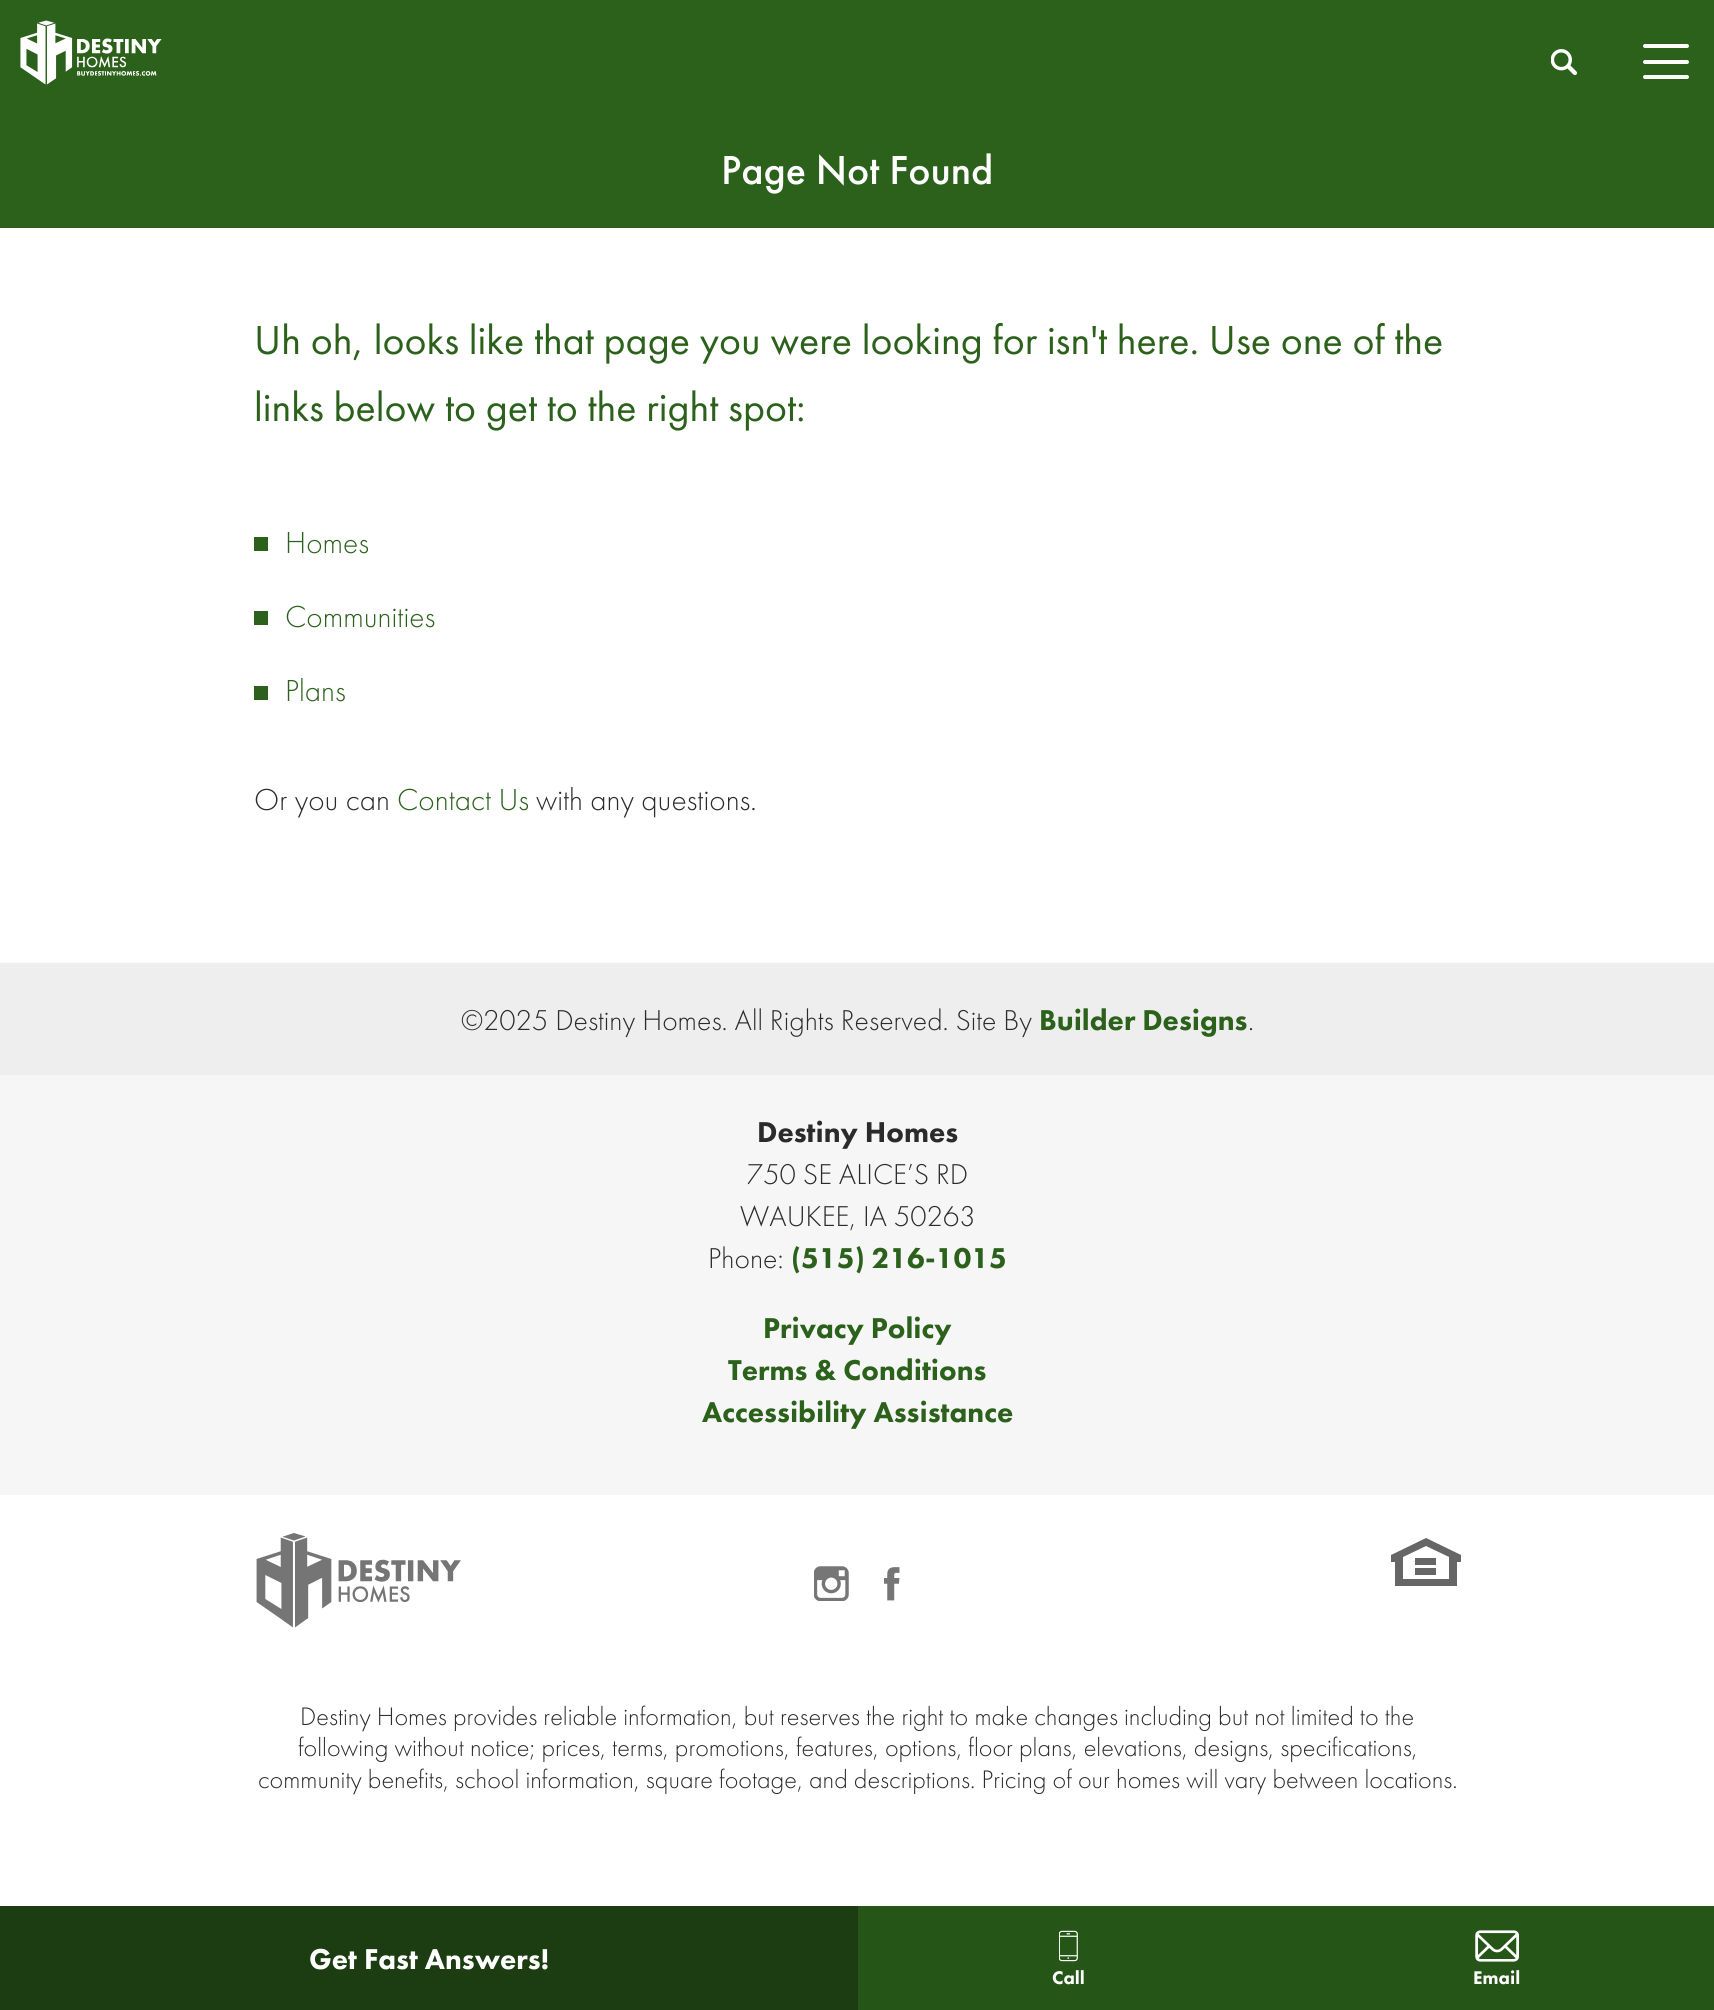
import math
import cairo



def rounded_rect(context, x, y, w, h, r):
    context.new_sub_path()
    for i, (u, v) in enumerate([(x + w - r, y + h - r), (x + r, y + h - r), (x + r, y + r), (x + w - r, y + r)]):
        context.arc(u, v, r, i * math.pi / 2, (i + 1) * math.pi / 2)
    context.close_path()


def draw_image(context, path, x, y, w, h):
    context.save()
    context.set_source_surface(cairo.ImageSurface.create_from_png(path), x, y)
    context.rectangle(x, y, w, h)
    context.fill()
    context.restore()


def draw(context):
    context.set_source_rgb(1, 1, 1)
    context.paint()
    context.set_source_rgb(43 / 255, 97 / 255, 27 / 255)
    context.rectangle(0, 0, 1714, 228)
    context.fill()
    draw_image(context, "images/1.png", 20, 20, 142, 65)
    draw_image(context, "images/2.png", 1551, 49, 26, 26)
    context.set_source_rgb(1, 1, 1)
    rounded_rect(context, 1643, 44, 46, 4, 2)
    context.fill()
    rounded_rect(context, 1643, 60, 46, 4, 2)
    context.fill()
    rounded_rect(context, 1643, 75, 46, 4, 2)
    context.fill()
    context.set_source_rgb(43 / 255, 97 / 255, 27 / 255)
    context.rectangle(254, 537, 14, 14)
    context.fill()
    context.rectangle(254, 611, 14, 14)
    context.fill()
    context.rectangle(254, 686, 14, 14)
    context.fill()
    context.set_source_rgb(238 / 255, 238 / 255, 238 / 255)
    context.rectangle(0, 963, 1714, 112)
    context.fill()
    context.set_source_rgb(246 / 255, 246 / 255, 246 / 255)
    context.rectangle(0, 1075, 1714, 420)
    context.fill()
    draw_image(context, "images/3.png", 256, 1533, 205, 95)
    draw_image(context, "images/4.png", 814, 1566, 35, 35)
    draw_image(context, "images/5.png", 884, 1567, 16, 34)
    context.set_source_rgb(102 / 255, 102 / 255, 102 / 255)
    context.set_fill_rule(cairo.FillRule.EVEN_ODD)
    context.new_path()
    context.move_to(1426, 1538)
    context.line_to(1391, 1555)
    context.line_to(1391, 1562)
    context.line_to(1395, 1562)
    context.line_to(1395, 1586)
    context.line_to(1457, 1586)
    context.line_to(1457, 1562)
    context.line_to(1461, 1562)
    context.line_to(1461, 1555)
    context.close_path()
    context.move_to(1449, 1579)
    context.line_to(1403, 1579)
    context.line_to(1403, 1557)
    context.line_to(1426, 1546)
    context.line_to(1449, 1557)
    context.close_path()
    context.fill()
    context.rectangle(1415, 1558, 21, 7)
    context.fill()
    context.rectangle(1415, 1568, 21, 7)
    context.fill()
    context.set_source_rgb(27 / 255, 61 / 255, 17 / 255)
    context.rectangle(0, 1906, 858, 104)
    context.fill()
    context.set_source_rgb(38 / 255, 85 / 255, 24 / 255)
    context.rectangle(858, 1906, 856, 104)
    context.fill()
    draw_image(context, "images/6.png", 1059, 1930, 19, 32)
    draw_image(context, "images/7.png", 1475, 1930, 44, 32)
    context.select_font_face("Futura PT Medium")
    context.set_font_size(42)
    context.set_source_rgb(1, 1, 1)
    context.move_to(721, 184)
    context.show_text("Page Not Found")
    context.select_font_face("Futura PT")
    context.set_source_rgb(43 / 255, 97 / 255, 27 / 255)
    context.move_to(254, 354)
    context.show_text("Uh oh, looks like that page you were looking for isn't here. Use one of the")
    context.move_to(254, 421)
    context.show_text("links below to get to the right spot:")
    context.select_font_face("Futura PT Light")
    context.set_font_size(31.5)
    context.move_to(285, 553)
    context.show_text("Homes")
    context.move_to(285, 627)
    context.show_text("Communities")
    context.move_to(285, 701)
    context.show_text("Plans")
    context.set_source_rgb(43 / 255, 43 / 255, 43 / 255)
    context.move_to(254, 810)
    context.show_text("Or you can")
    context.set_source_rgb(43 / 255, 97 / 255, 27 / 255)
    context.move_to(397, 810)
    context.show_text("Contact Us")
    context.set_source_rgb(43 / 255, 43 / 255, 43 / 255)
    context.move_to(536, 810)
    context.show_text("with any questions.")
    context.set_font_size(29.75)
    context.move_to(461, 1030)
    context.show_text("©2025 Destiny Homes. All Rights Reserved. Site By")
    context.select_font_face("Futura PT Black")
    context.set_source_rgb(43 / 255, 97 / 255, 27 / 255)
    context.move_to(1039, 1030)
    context.show_text("Builder Designs")
    context.select_font_face("Futura PT Light")
    context.set_source_rgb(43 / 255, 43 / 255, 43 / 255)
    context.move_to(1248, 1030)
    context.show_text(".")
    context.select_font_face("Futura PT Black")
    context.move_to(757, 1142)
    context.show_text("Destiny Homes")
    context.select_font_face("Futura PT Light")
    context.move_to(747, 1184)
    context.show_text("750 SE ALICE’S RD")
    context.move_to(740, 1226)
    context.show_text("WAUKEE, IA 50263")
    context.move_to(708, 1268)
    context.show_text("Phone:")
    context.select_font_face("Futura PT Black")
    context.set_source_rgb(43 / 255, 97 / 255, 27 / 255)
    context.move_to(791, 1268)
    context.show_text("(515) 216-1015")
    context.move_to(763, 1338)
    context.show_text("Privacy Policy")
    context.move_to(728, 1380)
    context.show_text("Terms & Conditions")
    context.move_to(702, 1422)
    context.show_text("Accessibility Assistance")
    context.select_font_face("Futura PT Light")
    context.set_font_size(26.25)
    context.set_source_rgb(43 / 255, 43 / 255, 43 / 255)
    context.move_to(300, 1725)
    context.show_text("Destiny Homes provides reliable information, but reserves the right to make changes including but not limited to the")
    context.move_to(298, 1756)
    context.show_text("following without notice; prices, terms, promotions, features, options, floor plans, elevations, designs, specifications,")
    context.move_to(258, 1788)
    context.show_text("community benefits, school information, square footage, and descriptions. Pricing of our homes will vary between locations.")
    context.select_font_face("Futura PT Black")
    context.set_font_size(29.75)
    context.set_source_rgb(1, 1, 1)
    context.move_to(309, 1969)
    context.show_text("Get Fast Answers!")
    context.set_font_size(19)
    context.move_to(1052, 1984)
    context.show_text("Call")
    context.move_to(1473, 1984)
    context.show_text("Email")


surface = cairo.ImageSurface(cairo.Format.RGB24, 1714, 2010)
context = cairo.Context(surface)
options = cairo.FontOptions()
options.set_hint_metrics(cairo.HintMetrics.OFF)
options.set_hint_style(cairo.HintStyle.NONE)
context.set_font_options(options)
context.set_miter_limit(4)
draw(context)
surface.write_to_png("out.png")
